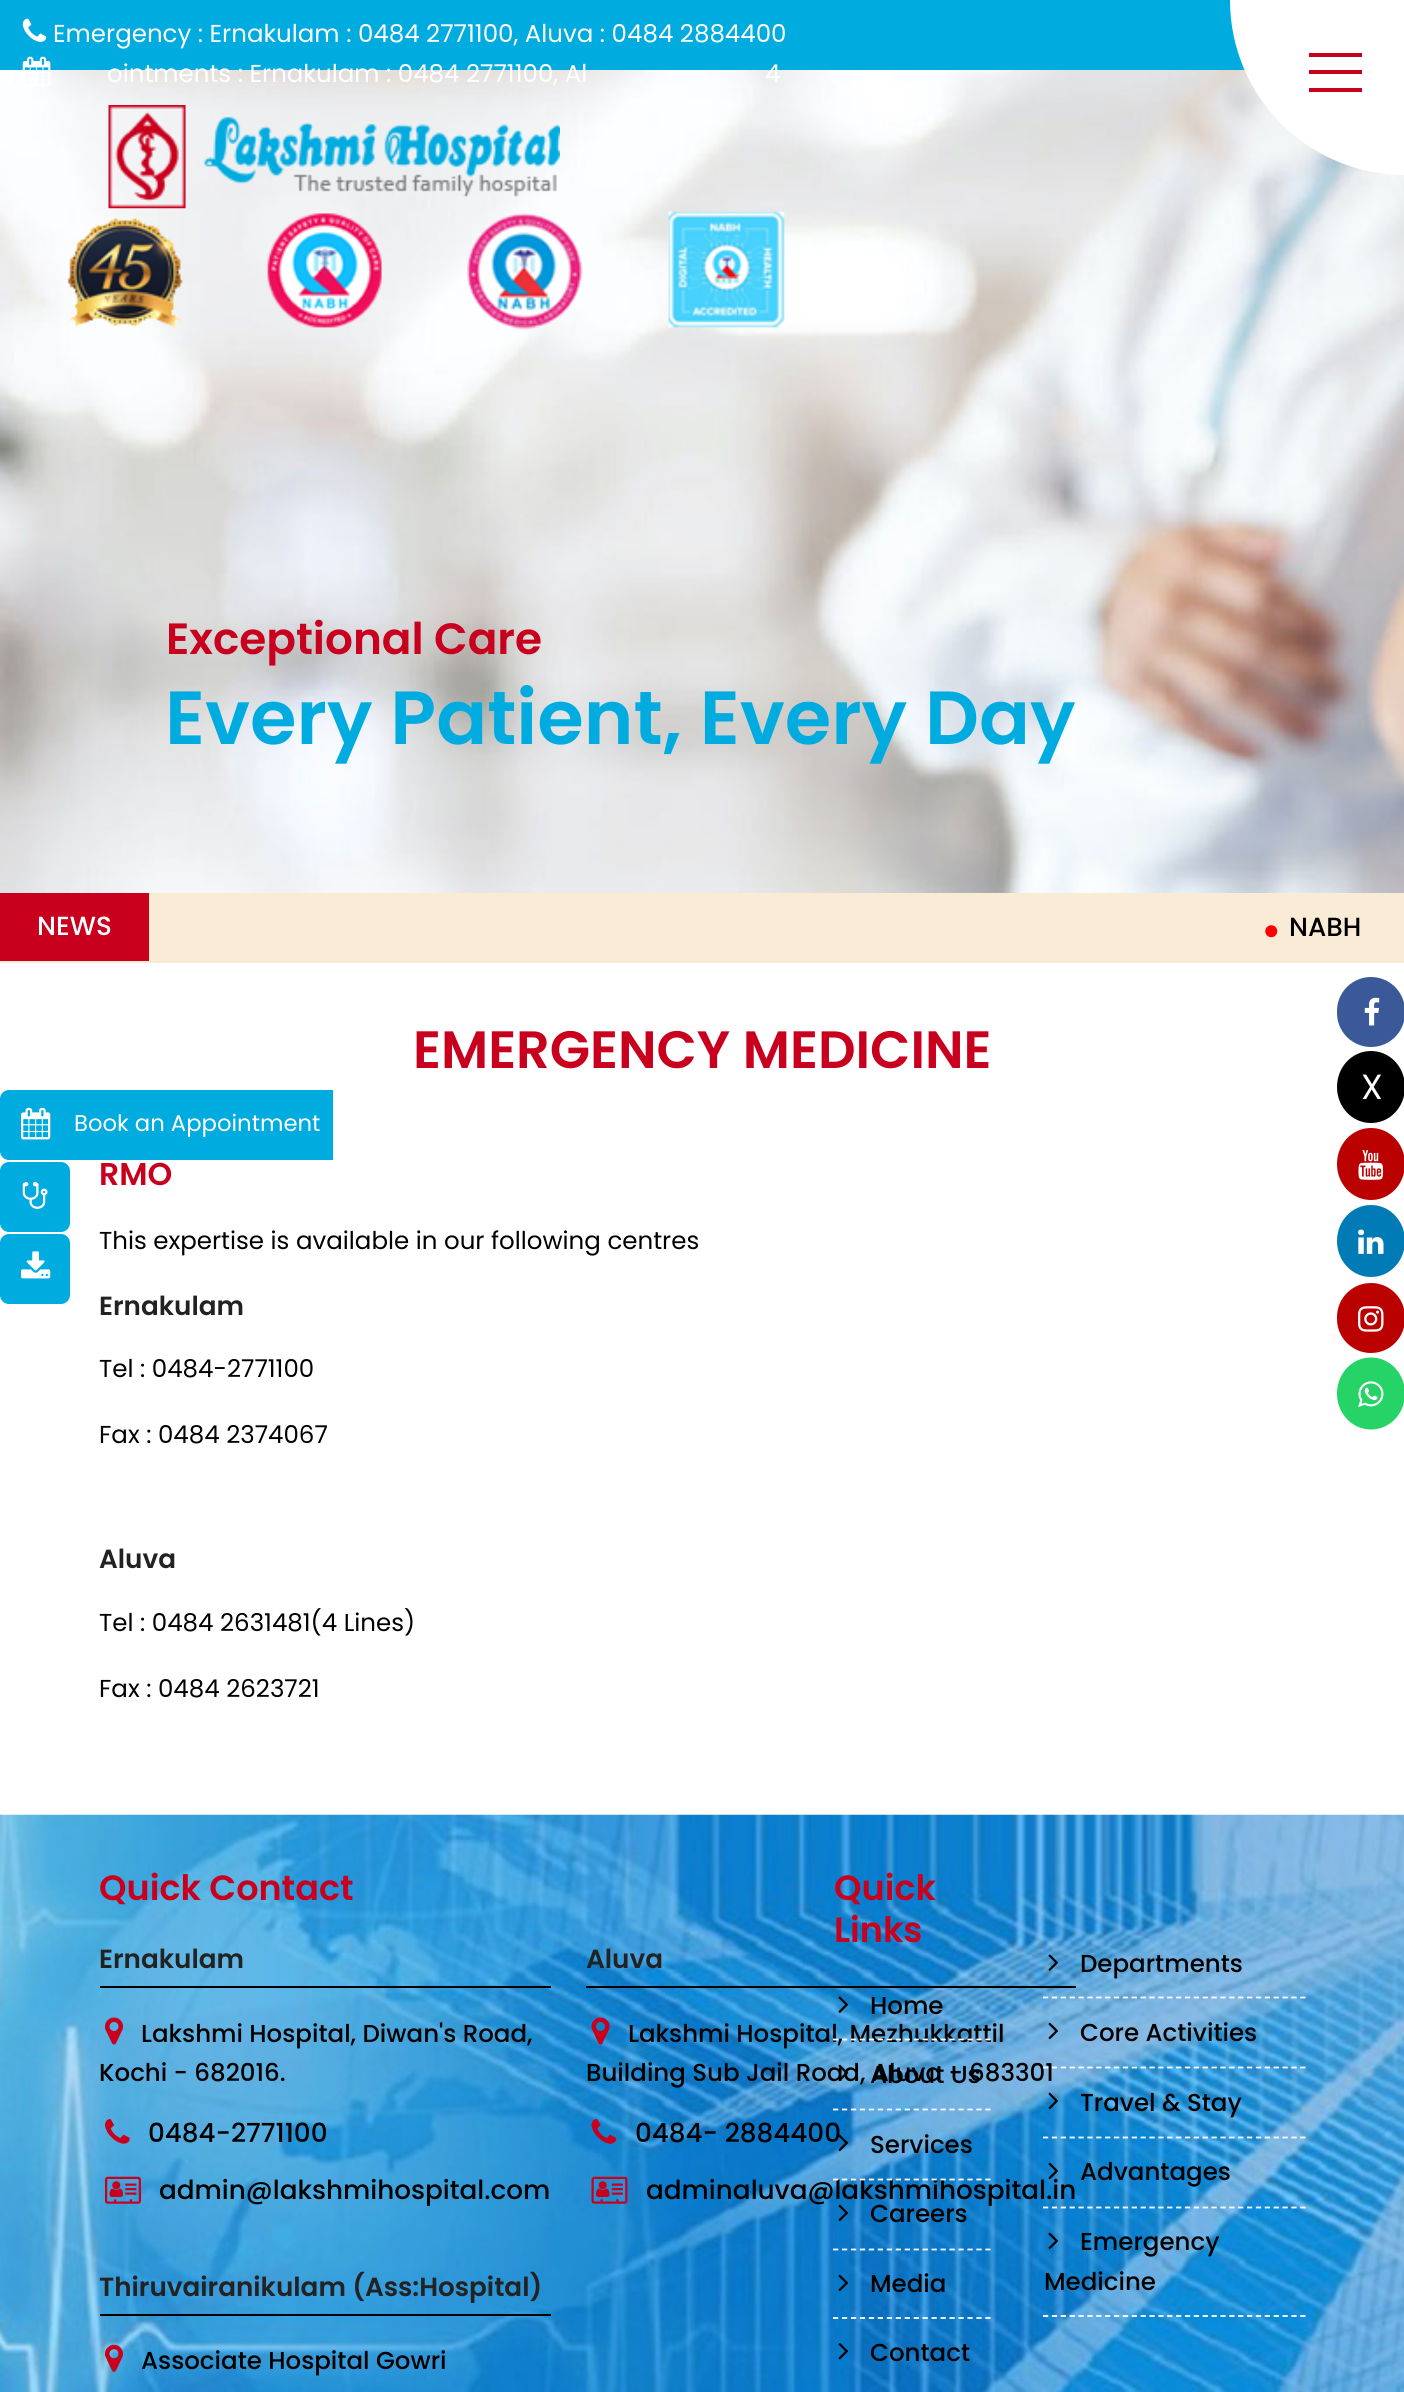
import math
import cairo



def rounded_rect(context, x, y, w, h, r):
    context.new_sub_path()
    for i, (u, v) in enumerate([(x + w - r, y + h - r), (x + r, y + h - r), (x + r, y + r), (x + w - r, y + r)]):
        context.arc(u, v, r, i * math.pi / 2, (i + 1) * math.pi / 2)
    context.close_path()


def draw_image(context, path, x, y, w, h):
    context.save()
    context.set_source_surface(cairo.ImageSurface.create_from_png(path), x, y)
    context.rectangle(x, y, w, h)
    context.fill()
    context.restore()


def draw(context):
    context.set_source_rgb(1, 1, 1)
    context.paint()
    context.set_source_rgb(0, 171 / 255, 224 / 255)
    context.rectangle(0, 0, 1245, 70)
    context.fill()
    draw_image(context, "images/1.png", 22, 18, 25, 24)
    draw_image(context, "images/8.png", 0, 70, 1404, 823)
    draw_image(context, "images/2.png", 22, 56, 29, 30)
    draw_image(context, "images/3.png", 108, 105, 452, 104)
    draw_image(context, "images/4.png", 67, 218, 116, 110)
    draw_image(context, "images/5.png", 267, 213, 115, 115)
    draw_image(context, "images/6.png", 466, 213, 117, 117)
    draw_image(context, "images/7.png", 668, 211, 117, 117)
    context.set_source_rgb(1, 1, 1)
    rounded_rect(context, 1230, -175, 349, 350, 175)
    context.fill()
    context.set_source_rgb(200 / 255, 0, 30 / 255)
    context.rectangle(1309, 70, 53, 4)
    context.fill()
    context.rectangle(1309, 53, 53, 4)
    context.fill()
    context.rectangle(1309, 88, 53, 4)
    context.fill()
    context.set_source_rgb(250 / 255, 235 / 255, 215 / 255)
    context.rectangle(0, 893, 1404, 70)
    context.fill()
    context.set_source_rgb(200 / 255, 0, 30 / 255)
    context.rectangle(0, 893, 149, 68)
    context.fill()
    draw_image(context, "images/9.png", 1265, 925, 13, 13)
    context.set_source_rgb(59 / 255, 89 / 255, 152 / 255)
    rounded_rect(context, 1337, 977, 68, 70, 34)
    context.fill()
    draw_image(context, "images/10.png", 1364, 997, 16, 29)
    context.set_source_rgb(0, 0, 0)
    context.new_path()
    context.move_to(1371, 1051)
    context.curve_to(1390, 1051, 1405, 1067, 1405, 1087)
    context.curve_to(1405, 1107, 1390, 1123, 1371, 1123)
    context.curve_to(1352, 1123, 1337, 1107, 1337, 1087)
    context.curve_to(1337, 1067, 1352, 1051, 1371, 1051)
    context.close_path()
    context.fill()
    context.set_source_rgb(187 / 255, 0, 0)
    context.new_path()
    context.move_to(1371, 1128)
    context.curve_to(1390, 1128, 1405, 1144, 1405, 1164)
    context.curve_to(1405, 1184, 1390, 1200, 1371, 1200)
    context.curve_to(1352, 1200, 1337, 1184, 1337, 1164)
    context.curve_to(1337, 1144, 1352, 1128, 1371, 1128)
    context.close_path()
    context.fill()
    draw_image(context, "images/11.png", 1358, 1150, 26, 30)
    context.set_source_rgb(0, 123 / 255, 181 / 255)
    context.new_path()
    context.move_to(1371, 1205)
    context.curve_to(1390, 1205, 1405, 1221, 1405, 1241)
    context.curve_to(1405, 1261, 1390, 1277, 1371, 1277)
    context.curve_to(1352, 1277, 1337, 1261, 1337, 1241)
    context.curve_to(1337, 1221, 1352, 1205, 1371, 1205)
    context.close_path()
    context.fill()
    draw_image(context, "images/12.png", 1358, 1229, 26, 25)
    context.set_source_rgb(187 / 255, 0, 0)
    rounded_rect(context, 1337, 1283, 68, 70, 34)
    context.fill()
    draw_image(context, "images/13.png", 1358, 1306, 26, 26)
    context.set_source_rgb(37 / 255, 211 / 255, 102 / 255)
    context.new_path()
    context.move_to(1371, 1357.5)
    context.curve_to(1390, 1357.5, 1405, 1373.5, 1405, 1393.5)
    context.curve_to(1405, 1413.5, 1390, 1429.5, 1371, 1429.5)
    context.curve_to(1352, 1429.5, 1337, 1413.5, 1337, 1393.5)
    context.curve_to(1337, 1373.5, 1352, 1357.5, 1371, 1357.5)
    context.close_path()
    context.fill()
    draw_image(context, "images/14.png", 1358, 1381, 26, 26)
    context.set_source_rgb(0, 171 / 255, 224 / 255)
    rounded_rect(context, 0, 1090, 70, 70, 9)
    context.fill()
    draw_image(context, "images/15.png", 21, 1107, 30, 33)
    context.rectangle(61, 1090, 272, 70)
    context.fill()
    rounded_rect(context, 0, 1162, 70, 70, 9)
    context.fill()
    draw_image(context, "images/16.png", 22, 1181, 26, 28)
    rounded_rect(context, 0, 1234, 70, 70, 9)
    context.fill()
    draw_image(context, "images/17.png", 21, 1251, 30, 28)
    draw_image(context, "images/18.png", 0, 1814, 1404, 578)
    context.set_source_rgb(0, 0, 0)
    context.rectangle(100, 1986, 451, 2)
    context.fill()
    draw_image(context, "images/19.png", 105, 2017, 18, 28)
    draw_image(context, "images/20.png", 105, 2119, 25, 25)
    draw_image(context, "images/21.png", 105, 2176, 36, 28)
    context.rectangle(586, 1986, 490, 2)
    context.fill()
    draw_image(context, "images/22.png", 591, 2017, 19, 28)
    draw_image(context, "images/23.png", 591, 2119, 26, 25)
    draw_image(context, "images/24.png", 591, 2176, 37, 28)
    context.rectangle(100, 2314, 451, 2)
    context.fill()
    draw_image(context, "images/25.png", 105, 2344, 18, 28)
    draw_image(context, "images/26.png", 838, 1996, 11, 17)
    context.new_path()
    context.move_to(833, 2109.5)
    context.line_to(990.5, 2109.5)
    context.set_source_rgb(1, 1, 1)
    context.set_line_width(1.8)
    context.set_dash([5.25, 3.71])
    context.stroke()
    context.new_path()
    context.move_to(833, 2249.5)
    context.line_to(990.5, 2249.5)
    context.stroke()
    context.new_path()
    context.move_to(833, 2318)
    context.line_to(990.5, 2318)
    context.stroke()
    draw_image(context, "images/30.png", 838, 2274, 11, 18)
    draw_image(context, "images/31.png", 838, 2343, 11, 17)
    context.new_path()
    context.move_to(1043, 1997.5)
    context.line_to(1305.5, 1997.5)
    context.set_dash([5.25, 3.62])
    context.stroke()
    draw_image(context, "images/32.png", 1048, 1954, 11, 17)
    draw_image(context, "images/33.png", 1048, 2022, 11, 18)
    context.new_path()
    context.move_to(1043, 2137.5)
    context.line_to(1305.5, 2137.5)
    context.stroke()
    draw_image(context, "images/34.png", 1048, 2092, 11, 18)
    context.new_path()
    context.move_to(1043, 2207.5)
    context.line_to(1305.5, 2207.5)
    context.stroke()
    context.new_path()
    context.move_to(1043, 2316)
    context.line_to(1305.5, 2316)
    context.stroke()
    draw_image(context, "images/36.png", 1048, 2232, 11, 18)
    context.select_font_face("Poppins")
    context.set_font_size(24.5)
    context.move_to(53, 42)
    context.show_text("Emergency : Ernakulam : 0484 2771100, Aluva : 0484 2884400")
    context.move_to(107, 82)
    context.show_text("ointments : Ernakulam : 0484 2771100, Al")
    context.move_to(765, 82)
    context.show_text("4")
    context.select_font_face("Poppins SemiBold")
    context.set_font_size(43.75)
    context.set_source_rgb(200 / 255, 0, 30 / 255)
    context.move_to(166, 654)
    context.show_text("Exceptional Care")
    context.set_font_size(75.25)
    context.set_source_rgb(0, 171 / 255, 224 / 255)
    context.move_to(165, 744)
    context.show_text("Every Patient, Every Day")
    context.select_font_face("Poppins Medium")
    context.set_font_size(26.25)
    context.set_source_rgb(1, 1, 1)
    context.move_to(37, 935)
    context.show_text("NEWS")
    context.set_source_rgb(0, 0, 0)
    context.move_to(1289, 936)
    context.show_text("NABH")
    context.select_font_face("Poppins SemiBold")
    context.set_font_size(52.5)
    context.set_source_rgb(200 / 255, 0, 30 / 255)
    context.move_to(413, 1068)
    context.show_text("EMERGENCY MEDICINE")
    context.set_font_size(31.5)
    context.move_to(99, 1185)
    context.show_text("RMO")
    context.select_font_face("Poppins")
    context.set_font_size(24.5)
    context.set_source_rgb(0, 0, 0)
    context.move_to(99, 1249)
    context.show_text("This expertise is available in our following centres")
    context.select_font_face("Poppins SemiBold")
    context.set_font_size(26.25)
    context.set_source_rgb(34 / 255, 34 / 255, 34 / 255)
    context.move_to(99, 1315)
    context.show_text("Ernakulam")
    context.select_font_face("Poppins")
    context.set_font_size(24.5)
    context.set_source_rgb(0, 0, 0)
    context.move_to(99, 1377)
    context.show_text("Tel : 0484-2771100")
    context.move_to(99, 1443)
    context.show_text("Fax : 0484 2374067")
    context.select_font_face("Poppins SemiBold")
    context.set_font_size(26.25)
    context.set_source_rgb(34 / 255, 34 / 255, 34 / 255)
    context.move_to(99, 1568)
    context.show_text("Aluva")
    context.select_font_face("Poppins")
    context.set_font_size(24.5)
    context.set_source_rgb(0, 0, 0)
    context.move_to(99, 1631)
    context.show_text("Tel : 0484 2631481(4 Lines)")
    context.move_to(99, 1697)
    context.show_text("Fax : 0484 2623721")
    context.set_font_size(35)
    context.set_source_rgb(1, 1, 1)
    context.move_to(1361, 1099)
    context.show_text("X")
    context.set_font_size(22.75)
    context.move_to(74, 1131)
    context.show_text("Book an Appointment")
    context.select_font_face("Poppins SemiBold")
    context.set_font_size(35)
    context.set_source_rgb(200 / 255, 0, 30 / 255)
    context.move_to(99, 1900)
    context.show_text("Quick Contact")
    context.set_font_size(26.25)
    context.set_source_rgb(34 / 255, 34 / 255, 34 / 255)
    context.move_to(99, 1968)
    context.show_text("Ernakulam")
    context.select_font_face("Poppins Medium")
    context.set_font_size(24.5)
    context.set_source_rgb(0, 0, 0)
    context.move_to(141, 2042)
    context.show_text("Lakshmi Hospital, Diwan's Road,")
    context.move_to(99, 2081)
    context.show_text("Kochi - 682016.")
    context.set_font_size(26.25)
    context.move_to(148, 2142)
    context.show_text("0484-2771100")
    context.move_to(159, 2199)
    context.show_text("admin@lakshmihospital.com")
    context.select_font_face("Poppins SemiBold")
    context.set_source_rgb(34 / 255, 34 / 255, 34 / 255)
    context.move_to(586, 1968)
    context.show_text("Aluva")
    context.select_font_face("Poppins Medium")
    context.set_font_size(24.5)
    context.set_source_rgb(0, 0, 0)
    context.move_to(628, 2042)
    context.show_text("Lakshmi Hospital, Mezhukkattil")
    context.move_to(586, 2081)
    context.show_text("Building Sub Jail Road, Aluva - 683301")
    context.set_font_size(26.25)
    context.move_to(635, 2142)
    context.show_text("0484- 2884400")
    context.move_to(646, 2199)
    context.show_text("adminaluva@lakshmihospital.in")
    context.select_font_face("Poppins SemiBold")
    context.set_source_rgb(34 / 255, 34 / 255, 34 / 255)
    context.move_to(99, 2296)
    context.show_text("Thiruvairanikulam (Ass:Hospital)")
    context.select_font_face("Poppins Medium")
    context.set_font_size(24.5)
    context.set_source_rgb(0, 0, 0)
    context.move_to(141, 2369)
    context.show_text("Associate Hospital Gowri")
    context.select_font_face("Poppins SemiBold")
    context.set_font_size(35)
    context.set_source_rgb(200 / 255, 0, 30 / 255)
    context.move_to(834, 1900)
    context.show_text("Quick")
    context.move_to(834, 1942)
    context.show_text("Links")
    context.new_path()
    context.move_to(833, 2039.5)
    context.line_to(990.5, 2039.5)
    context.set_source_rgb(1, 1, 1)
    context.set_dash([5.25, 3.71])
    context.stroke()
    context.select_font_face("Poppins Medium")
    context.set_font_size(24.5)
    context.set_source_rgb(0, 0, 0)
    context.move_to(870, 2014)
    context.show_text("Home")
    draw_image(context, "images/27.png", 838, 2064, 11, 18)
    context.move_to(870, 2083)
    context.show_text("About Us")
    context.new_path()
    context.move_to(833, 2179.5)
    context.line_to(990.5, 2179.5)
    context.set_source_rgb(1, 1, 1)
    context.stroke()
    draw_image(context, "images/28.png", 838, 2134, 11, 18)
    context.set_source_rgb(0, 0, 0)
    context.move_to(870, 2153)
    context.show_text("Services")
    draw_image(context, "images/29.png", 838, 2204, 11, 18)
    context.move_to(870, 2222)
    context.show_text("Careers")
    context.move_to(870, 2292)
    context.show_text("Media")
    context.move_to(870, 2361)
    context.show_text("Contact")
    context.move_to(1080, 1972)
    context.show_text("Departments")
    context.new_path()
    context.move_to(1043, 2067.5)
    context.line_to(1305.5, 2067.5)
    context.set_source_rgb(1, 1, 1)
    context.set_dash([5.25, 3.62])
    context.stroke()
    context.set_source_rgb(0, 0, 0)
    context.move_to(1080, 2041)
    context.show_text("Core Activities")
    context.move_to(1080, 2111)
    context.show_text("Travel & Stay")
    draw_image(context, "images/35.png", 1048, 2162, 11, 18)
    context.move_to(1080, 2180)
    context.show_text("Advantages")
    context.move_to(1080, 2250)
    context.show_text("Emergency")
    context.move_to(1044, 2290)
    context.show_text("Medicine")


surface = cairo.ImageSurface(cairo.Format.RGB24, 1404, 2392)
context = cairo.Context(surface)
options = cairo.FontOptions()
options.set_hint_metrics(cairo.HintMetrics.OFF)
options.set_hint_style(cairo.HintStyle.NONE)
context.set_font_options(options)
context.set_miter_limit(4)
draw(context)
surface.write_to_png("out.png")
